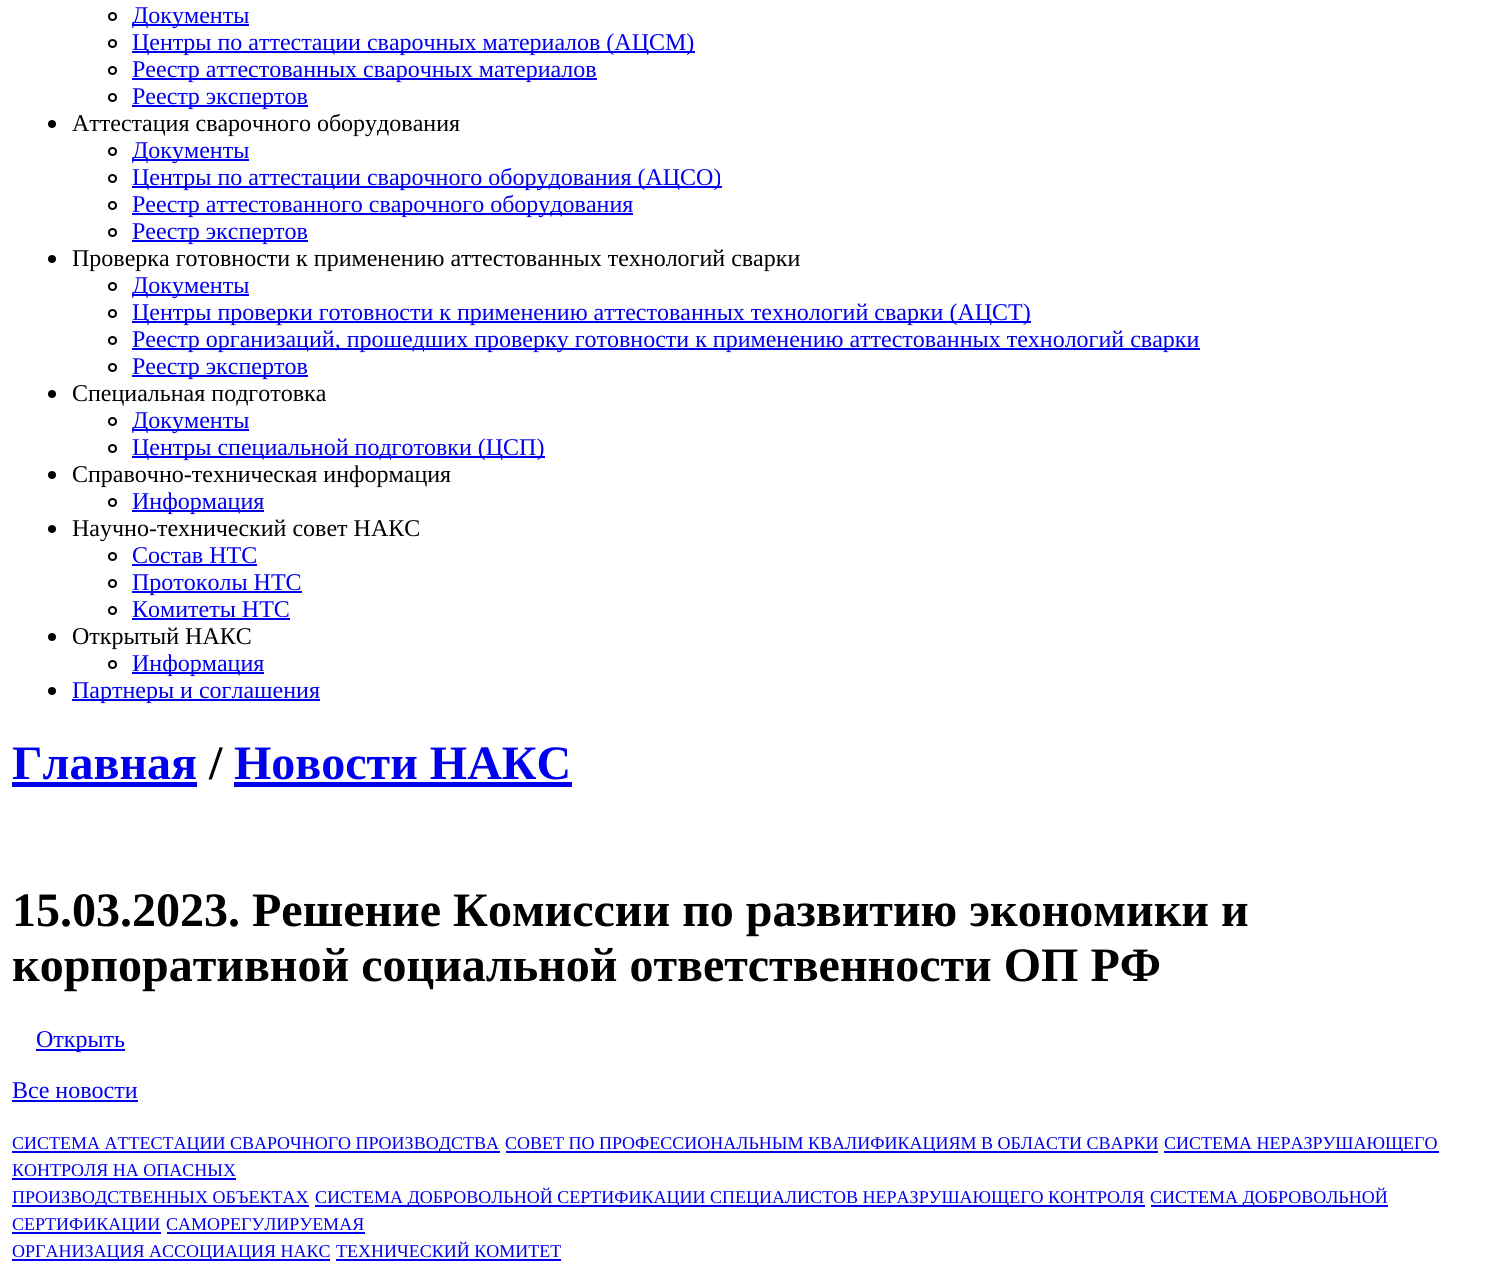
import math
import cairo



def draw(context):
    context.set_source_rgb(1, 1, 1)
    context.paint()
    context.arc(112.5, 16.5, 3.5, 0, 2 * math.pi)
    context.set_source_rgb(0, 0, 0)
    context.stroke()
    context.set_source_rgb(0, 0, 238 / 255)
    context.rectangle(132, 24, 117, 2)
    context.fill()
    context.arc(112.5, 43.5, 3.5, 0, 2 * math.pi)
    context.set_source_rgb(0, 0, 0)
    context.stroke()
    context.set_source_rgb(0, 0, 238 / 255)
    context.rectangle(132, 51, 563, 2)
    context.fill()
    context.arc(112.5, 70.5, 3.5, 0, 2 * math.pi)
    context.set_source_rgb(0, 0, 0)
    context.stroke()
    context.set_source_rgb(0, 0, 238 / 255)
    context.rectangle(132, 78, 465, 2)
    context.fill()
    context.arc(112.5, 97.5, 3.5, 0, 2 * math.pi)
    context.set_source_rgb(0, 0, 0)
    context.stroke()
    context.set_source_rgb(0, 0, 238 / 255)
    context.rectangle(132, 105, 176, 2)
    context.fill()
    context.set_source_rgb(0, 0, 0)
    context.arc(52, 124, 4, 0, 2 * math.pi)
    context.fill()
    context.arc(112.5, 151.5, 3.5, 0, 2 * math.pi)
    context.stroke()
    context.set_source_rgb(0, 0, 238 / 255)
    context.rectangle(132, 159, 117, 2)
    context.fill()
    context.arc(112.5, 178.5, 3.5, 0, 2 * math.pi)
    context.set_source_rgb(0, 0, 0)
    context.stroke()
    context.set_source_rgb(0, 0, 238 / 255)
    context.rectangle(132, 186, 590, 2)
    context.fill()
    context.arc(112.5, 205.5, 3.5, 0, 2 * math.pi)
    context.set_source_rgb(0, 0, 0)
    context.stroke()
    context.set_source_rgb(0, 0, 238 / 255)
    context.rectangle(132, 213, 501, 2)
    context.fill()
    context.arc(112.5, 232.5, 3.5, 0, 2 * math.pi)
    context.set_source_rgb(0, 0, 0)
    context.stroke()
    context.set_source_rgb(0, 0, 238 / 255)
    context.rectangle(132, 240, 176, 2)
    context.fill()
    context.set_source_rgb(0, 0, 0)
    context.arc(52, 259, 4, 0, 2 * math.pi)
    context.fill()
    context.arc(112.5, 286.5, 3.5, 0, 2 * math.pi)
    context.stroke()
    context.set_source_rgb(0, 0, 238 / 255)
    context.rectangle(132, 294, 117, 2)
    context.fill()
    context.arc(112.5, 313.5, 3.5, 0, 2 * math.pi)
    context.set_source_rgb(0, 0, 0)
    context.stroke()
    context.set_source_rgb(0, 0, 238 / 255)
    context.rectangle(132, 321, 899, 2)
    context.fill()
    context.arc(112.5, 340.5, 3.5, 0, 2 * math.pi)
    context.set_source_rgb(0, 0, 0)
    context.stroke()
    context.set_source_rgb(0, 0, 238 / 255)
    context.rectangle(132, 348, 1068, 2)
    context.fill()
    context.arc(112.5, 367.5, 3.5, 0, 2 * math.pi)
    context.set_source_rgb(0, 0, 0)
    context.stroke()
    context.set_source_rgb(0, 0, 238 / 255)
    context.rectangle(132, 375, 176, 2)
    context.fill()
    context.set_source_rgb(0, 0, 0)
    context.arc(52, 394, 4, 0, 2 * math.pi)
    context.fill()
    context.arc(112.5, 421.5, 3.5, 0, 2 * math.pi)
    context.stroke()
    context.set_source_rgb(0, 0, 238 / 255)
    context.rectangle(132, 429, 117, 2)
    context.fill()
    context.arc(112.5, 448.5, 3.5, 0, 2 * math.pi)
    context.set_source_rgb(0, 0, 0)
    context.stroke()
    context.set_source_rgb(0, 0, 238 / 255)
    context.rectangle(132, 456, 413, 2)
    context.fill()
    context.set_source_rgb(0, 0, 0)
    context.arc(52, 475, 4, 0, 2 * math.pi)
    context.fill()
    context.arc(112.5, 502.5, 3.5, 0, 2 * math.pi)
    context.stroke()
    context.set_source_rgb(0, 0, 238 / 255)
    context.rectangle(132, 510, 132, 2)
    context.fill()
    context.set_source_rgb(0, 0, 0)
    context.arc(52, 529, 4, 0, 2 * math.pi)
    context.fill()
    context.arc(112.5, 556.5, 3.5, 0, 2 * math.pi)
    context.stroke()
    context.set_source_rgb(0, 0, 238 / 255)
    context.rectangle(132, 564, 125, 2)
    context.fill()
    context.arc(112.5, 583.5, 3.5, 0, 2 * math.pi)
    context.set_source_rgb(0, 0, 0)
    context.stroke()
    context.set_source_rgb(0, 0, 238 / 255)
    context.rectangle(132, 591, 170, 2)
    context.fill()
    context.arc(112.5, 610.5, 3.5, 0, 2 * math.pi)
    context.set_source_rgb(0, 0, 0)
    context.stroke()
    context.set_source_rgb(0, 0, 238 / 255)
    context.rectangle(132, 618, 158, 2)
    context.fill()
    context.set_source_rgb(0, 0, 0)
    context.arc(52, 637, 4, 0, 2 * math.pi)
    context.fill()
    context.arc(112.5, 664.5, 3.5, 0, 2 * math.pi)
    context.stroke()
    context.set_source_rgb(0, 0, 238 / 255)
    context.rectangle(132, 672, 132, 2)
    context.fill()
    context.set_source_rgb(0, 0, 0)
    context.arc(52, 691, 4, 0, 2 * math.pi)
    context.fill()
    context.set_source_rgb(0, 0, 238 / 255)
    context.rectangle(72, 699, 248, 2)
    context.fill()
    context.rectangle(12, 782, 185, 5)
    context.fill()
    context.rectangle(234, 782, 338, 5)
    context.fill()
    context.rectangle(36, 1049, 89, 2)
    context.fill()
    context.rectangle(12, 1100, 126, 2)
    context.fill()
    context.rectangle(12, 1151, 488, 2)
    context.fill()
    context.rectangle(506, 1151, 652, 2)
    context.fill()
    context.rectangle(1164, 1151, 275, 2)
    context.fill()
    context.rectangle(12, 1178, 224, 2)
    context.fill()
    context.rectangle(12, 1205, 297, 2)
    context.fill()
    context.rectangle(315, 1205, 830, 2)
    context.fill()
    context.rectangle(1151, 1205, 237, 2)
    context.fill()
    context.rectangle(12, 1232, 149, 2)
    context.fill()
    context.rectangle(167, 1232, 198, 2)
    context.fill()
    context.rectangle(12, 1259, 318, 2)
    context.fill()
    context.rectangle(336, 1259, 225, 2)
    context.fill()
    context.select_font_face("Liberation Serif")
    context.set_font_size(24)
    context.move_to(132, 23)
    context.show_text("Документы")
    context.move_to(132, 50)
    context.show_text("Центры по аттестации сварочных материалов (АЦСМ)")
    context.move_to(132, 77)
    context.show_text("Реестр аттестованных сварочных материалов")
    context.move_to(132, 104)
    context.show_text("Реестр экспертов")
    context.set_source_rgb(0, 0, 0)
    context.move_to(72, 131)
    context.show_text("Аттестация сварочного оборудования")
    context.set_source_rgb(0, 0, 238 / 255)
    context.move_to(132, 158)
    context.show_text("Документы")
    context.move_to(132, 185)
    context.show_text("Центры по аттестации сварочного оборудования (АЦСО)")
    context.move_to(132, 212)
    context.show_text("Реестр аттестованного сварочного оборудования")
    context.move_to(132, 239)
    context.show_text("Реестр экспертов")
    context.set_source_rgb(0, 0, 0)
    context.move_to(72, 266)
    context.show_text("Проверка готовности к применению аттестованных технологий сварки")
    context.set_source_rgb(0, 0, 238 / 255)
    context.move_to(132, 293)
    context.show_text("Документы")
    context.move_to(132, 320)
    context.show_text("Центры проверки готовности к применению аттестованных технологий сварки (АЦСТ)")
    context.move_to(132, 347)
    context.show_text("Реестр организаций, прошедших проверку готовности к применению аттестованных технологий сварки")
    context.move_to(132, 374)
    context.show_text("Реестр экспертов")
    context.set_source_rgb(0, 0, 0)
    context.move_to(72, 401)
    context.show_text("Специальная подготовка")
    context.set_source_rgb(0, 0, 238 / 255)
    context.move_to(132, 428)
    context.show_text("Документы")
    context.move_to(132, 455)
    context.show_text("Центры специальной подготовки (ЦСП)")
    context.set_source_rgb(0, 0, 0)
    context.move_to(72, 482)
    context.show_text("Справочно-техническая информация")
    context.set_source_rgb(0, 0, 238 / 255)
    context.move_to(132, 509)
    context.show_text("Информация")
    context.set_source_rgb(0, 0, 0)
    context.move_to(72, 536)
    context.show_text("Научно-технический совет НАКС")
    context.set_source_rgb(0, 0, 238 / 255)
    context.move_to(132, 563)
    context.show_text("Состав НТС")
    context.move_to(132, 590)
    context.show_text("Протоколы НТС")
    context.move_to(132, 617)
    context.show_text("Комитеты НТС")
    context.set_source_rgb(0, 0, 0)
    context.move_to(72, 644)
    context.show_text("Открытый НАКС")
    context.set_source_rgb(0, 0, 238 / 255)
    context.move_to(132, 671)
    context.show_text("Информация")
    context.move_to(72, 698)
    context.show_text("Партнеры и соглашения")
    context.select_font_face("Liberation Serif", cairo.FontSlant.NORMAL, cairo.FontWeight.BOLD)
    context.set_font_size(48)
    context.move_to(12, 779)
    context.show_text("Главная")
    context.set_source_rgb(0, 0, 0)
    context.move_to(209, 779)
    context.show_text("/")
    context.set_source_rgb(0, 0, 238 / 255)
    context.move_to(234, 779)
    context.show_text("Новости НАКС")
    context.set_source_rgb(0, 0, 0)
    context.move_to(12, 926)
    context.show_text("15.03.2023. Решение Комиссии по развитию экономики и")
    context.move_to(12, 981)
    context.show_text("корпоративной социальной ответственности ОП РФ")
    context.select_font_face("Liberation Serif")
    context.set_font_size(24)
    context.set_source_rgb(0, 0, 238 / 255)
    context.move_to(36, 1047)
    context.show_text("Открыть")
    context.move_to(12, 1098)
    context.show_text("Все новости")
    context.set_font_size(18)
    context.move_to(12, 1149)
    context.show_text("СИСТЕМА АТТЕСТАЦИИ СВАРОЧНОГО ПРОИЗВОДСТВА")
    context.move_to(505, 1149)
    context.show_text("СОВЕТ ПО ПРОФЕССИОНАЛЬНЫМ КВАЛИФИКАЦИЯМ В ОБЛАСТИ СВАРКИ")
    context.move_to(1164, 1149)
    context.show_text("СИСТЕМА НЕРАЗРУШАЮЩЕГО")
    context.move_to(12, 1176)
    context.show_text("КОНТРОЛЯ НА ОПАСНЫХ")
    context.move_to(12, 1203)
    context.show_text("ПРОИЗВОДСТВЕННЫХ ОБЪЕКТАХ")
    context.move_to(315, 1203)
    context.show_text("СИСТЕМА ДОБРОВОЛЬНОЙ СЕРТИФИКАЦИИ СПЕЦИАЛИСТОВ НЕРАЗРУШАЮЩЕГО КОНТРОЛЯ")
    context.move_to(1150, 1203)
    context.show_text("СИСТЕМА ДОБРОВОЛЬНОЙ")
    context.move_to(12, 1230)
    context.show_text("CЕРТИФИКАЦИИ")
    context.move_to(166, 1230)
    context.show_text("САМОРЕГУЛИРУЕМАЯ")
    context.move_to(12, 1257)
    context.show_text("ОРГАНИЗАЦИЯ АССОЦИАЦИЯ НАКС")
    context.move_to(336, 1257)
    context.show_text("ТЕХНИЧЕСКИЙ КОМИТЕТ")


surface = cairo.ImageSurface(cairo.Format.RGB24, 1508, 1265)
context = cairo.Context(surface)
options = cairo.FontOptions()
options.set_hint_metrics(cairo.HintMetrics.OFF)
options.set_hint_style(cairo.HintStyle.NONE)
context.set_font_options(options)
context.set_miter_limit(4)
draw(context)
surface.write_to_png("out.png")
